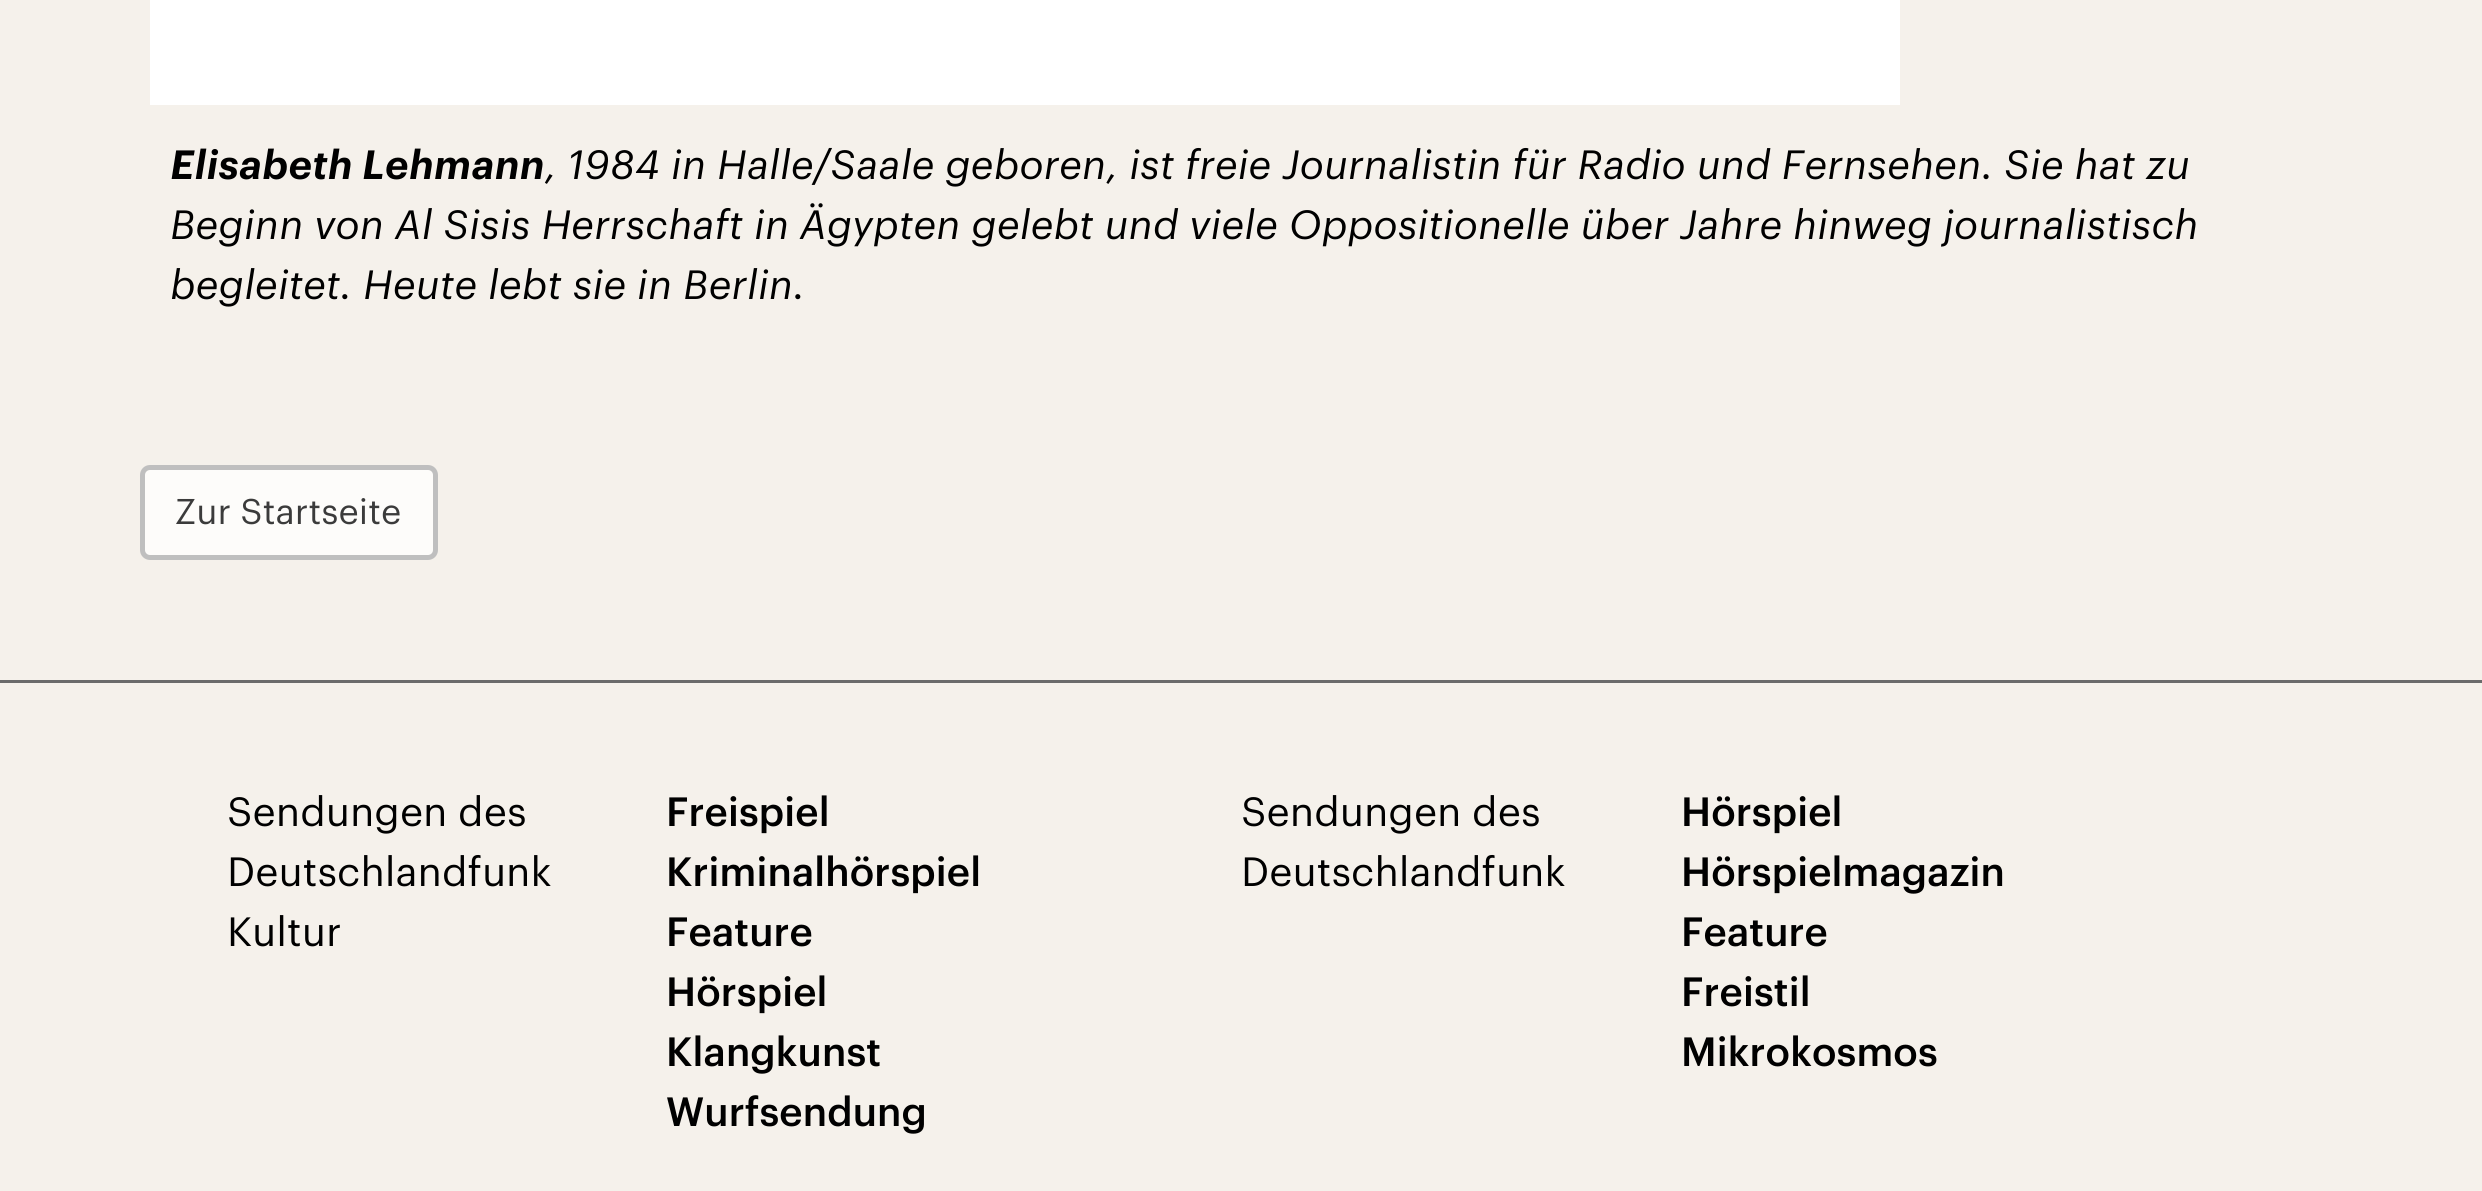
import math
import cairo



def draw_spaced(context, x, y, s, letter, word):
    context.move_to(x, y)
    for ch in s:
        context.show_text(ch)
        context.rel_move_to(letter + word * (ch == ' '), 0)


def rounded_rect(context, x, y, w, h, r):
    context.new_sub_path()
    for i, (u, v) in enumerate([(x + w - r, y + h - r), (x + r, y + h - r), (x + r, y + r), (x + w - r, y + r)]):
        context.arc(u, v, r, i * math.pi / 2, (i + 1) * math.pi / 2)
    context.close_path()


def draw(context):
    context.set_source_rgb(245 / 255, 241 / 255, 235 / 255)
    context.paint()
    context.set_source_rgb(1, 1, 1)
    context.rectangle(150, 0, 1750, 105)
    context.fill()
    context.set_source_rgb(253 / 255, 252 / 255, 250 / 255)
    rounded_rect(context, 142.5, 467.5, 293, 90, 7.5)
    context.fill_preserve()
    context.set_source_rgb(191 / 255, 191 / 255, 191 / 255)
    context.set_line_width(5)
    context.stroke()
    context.set_source_rgb(107 / 255, 107 / 255, 107 / 255)
    context.rectangle(0, 680, 2482, 3)
    context.fill()
    context.select_font_face("Graphik SemiBold", cairo.FontSlant.ITALIC)
    context.set_font_size(40)
    context.set_source_rgb(0, 0, 0)
    draw_spaced(context, 170, 179, "Elisabeth Lehmann", 0.2, 0)
    context.select_font_face("Graphik", cairo.FontSlant.ITALIC)
    draw_spaced(context, 545, 179, ", 1984 in Halle/Saale geboren, ist freie Journalistin für Radio und Fernsehen. Sie hat zu", 0.2, 0)
    draw_spaced(context, 170, 239, "Beginn von Al Sisis Herrschaft in Ägypten gelebt und viele Oppositionelle über Jahre hinweg journalistisch", 0.2, 0)
    draw_spaced(context, 170, 299, "begleitet. Heute lebt sie in Berlin.", 0.2, 0)
    context.select_font_face("Graphik")
    context.set_font_size(35)
    context.set_source_rgb(59 / 255, 59 / 255, 59 / 255)
    context.move_to(175, 524)
    context.show_text("Zur Startseite")
    context.set_font_size(40)
    context.set_source_rgb(0, 0, 0)
    context.move_to(227, 826)
    context.show_text("Sendungen des")
    context.move_to(227, 886)
    context.show_text("Deutschlandfunk")
    context.move_to(227, 946)
    context.show_text("Kultur")
    context.select_font_face("Graphik Medium")
    context.move_to(666, 826)
    context.show_text("Freispiel")
    context.move_to(666, 886)
    context.show_text("Kriminalhörspiel")
    context.move_to(666, 946)
    context.show_text("Feature")
    context.move_to(666, 1006)
    context.show_text("Hörspiel")
    context.move_to(666, 1066)
    context.show_text("Klangkunst")
    context.move_to(666, 1126)
    context.show_text("Wurfsendung")
    context.select_font_face("Graphik")
    context.move_to(1241, 826)
    context.show_text("Sendungen des")
    context.move_to(1241, 886)
    context.show_text("Deutschlandfunk")
    context.select_font_face("Graphik Medium")
    context.move_to(1681, 826)
    context.show_text("Hörspiel")
    context.move_to(1681, 886)
    context.show_text("Hörspielmagazin")
    context.move_to(1681, 946)
    context.show_text("Feature")
    context.move_to(1681, 1006)
    context.show_text("Freistil")
    context.move_to(1681, 1066)
    context.show_text("Mikrokosmos")


surface = cairo.ImageSurface(cairo.Format.RGB24, 2482, 1191)
context = cairo.Context(surface)
options = cairo.FontOptions()
options.set_hint_metrics(cairo.HintMetrics.OFF)
options.set_hint_style(cairo.HintStyle.NONE)
context.set_font_options(options)
context.set_miter_limit(4)
draw(context)
surface.write_to_png("out.png")
